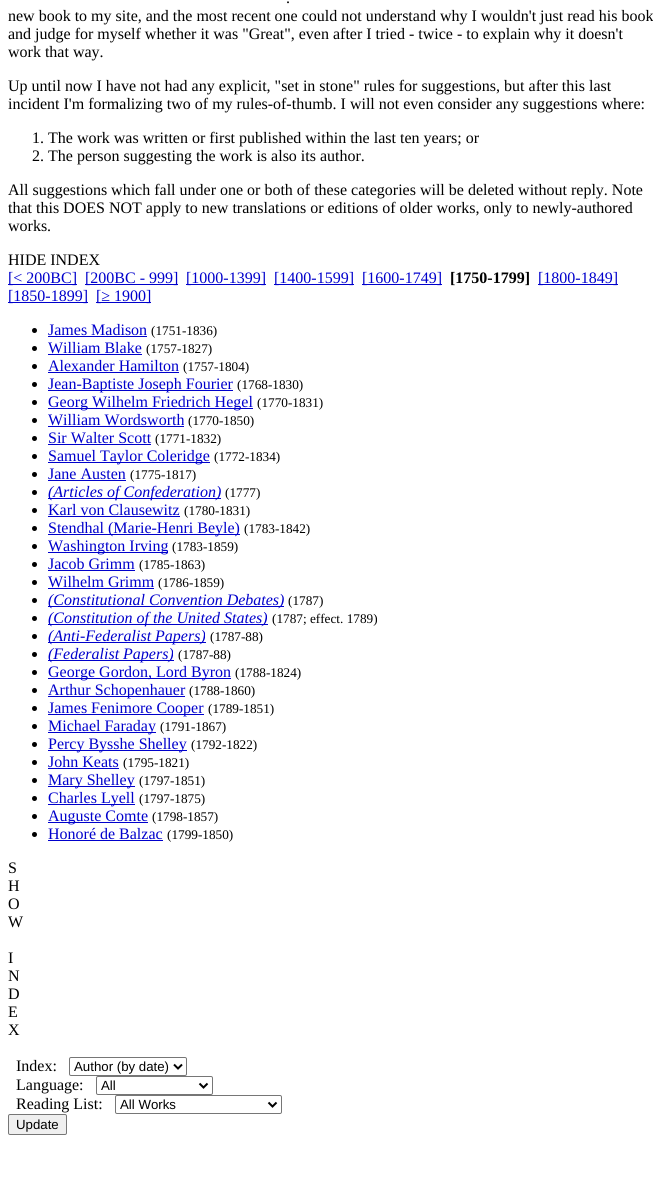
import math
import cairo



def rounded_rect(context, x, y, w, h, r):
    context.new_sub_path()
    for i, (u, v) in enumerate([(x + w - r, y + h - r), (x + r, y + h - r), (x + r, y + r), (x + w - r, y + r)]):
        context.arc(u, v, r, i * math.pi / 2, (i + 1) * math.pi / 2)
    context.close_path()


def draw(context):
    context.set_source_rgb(1, 1, 1)
    context.paint()
    context.set_source_rgb(0, 0, 204 / 255)
    context.rectangle(8, 284, 69, 1)
    context.fill()
    context.rectangle(85, 284, 93, 1)
    context.fill()
    context.rectangle(186, 284, 80, 1)
    context.fill()
    context.rectangle(274, 284, 80, 1)
    context.fill()
    context.rectangle(362, 284, 80, 1)
    context.fill()
    context.rectangle(538, 284, 80, 1)
    context.fill()
    context.rectangle(8, 302, 80, 1)
    context.fill()
    context.rectangle(96, 302, 55, 1)
    context.fill()
    context.set_source_rgb(0, 0, 0)
    context.arc(34.5, 330.5, 2.5, 0, 2 * math.pi)
    context.fill()
    context.set_source_rgb(0, 0, 204 / 255)
    context.rectangle(48, 336, 99, 1)
    context.fill()
    context.set_source_rgb(0, 0, 0)
    context.arc(34.5, 348.5, 2.5, 0, 2 * math.pi)
    context.fill()
    context.set_source_rgb(0, 0, 204 / 255)
    context.rectangle(48, 354, 94, 1)
    context.fill()
    context.set_source_rgb(0, 0, 0)
    context.arc(34.5, 366.5, 2.5, 0, 2 * math.pi)
    context.fill()
    context.set_source_rgb(0, 0, 204 / 255)
    context.rectangle(48, 372, 131, 1)
    context.fill()
    context.set_source_rgb(0, 0, 0)
    context.arc(34.5, 384.5, 2.5, 0, 2 * math.pi)
    context.fill()
    context.set_source_rgb(0, 0, 204 / 255)
    context.rectangle(48, 390, 185, 1)
    context.fill()
    context.set_source_rgb(0, 0, 0)
    context.arc(34.5, 402.5, 2.5, 0, 2 * math.pi)
    context.fill()
    context.set_source_rgb(0, 0, 204 / 255)
    context.rectangle(48, 408, 205, 1)
    context.fill()
    context.set_source_rgb(0, 0, 0)
    context.arc(34.5, 420.5, 2.5, 0, 2 * math.pi)
    context.fill()
    context.set_source_rgb(0, 0, 204 / 255)
    context.rectangle(48, 426, 136, 1)
    context.fill()
    context.set_source_rgb(0, 0, 0)
    context.arc(34.5, 438.5, 2.5, 0, 2 * math.pi)
    context.fill()
    context.set_source_rgb(0, 0, 204 / 255)
    context.rectangle(48, 444, 103, 1)
    context.fill()
    context.set_source_rgb(0, 0, 0)
    context.arc(34.5, 456.5, 2.5, 0, 2 * math.pi)
    context.fill()
    context.set_source_rgb(0, 0, 204 / 255)
    context.rectangle(48, 462, 162, 1)
    context.fill()
    context.set_source_rgb(0, 0, 0)
    context.arc(34.5, 474.5, 2.5, 0, 2 * math.pi)
    context.fill()
    context.set_source_rgb(0, 0, 204 / 255)
    context.rectangle(48, 480, 78, 1)
    context.fill()
    context.set_source_rgb(0, 0, 0)
    context.arc(34.5, 492.5, 2.5, 0, 2 * math.pi)
    context.fill()
    context.set_source_rgb(0, 0, 204 / 255)
    context.rectangle(48, 498, 173, 1)
    context.fill()
    context.set_source_rgb(0, 0, 0)
    context.arc(34.5, 510.5, 2.5, 0, 2 * math.pi)
    context.fill()
    context.set_source_rgb(0, 0, 204 / 255)
    context.rectangle(48, 516, 132, 1)
    context.fill()
    context.set_source_rgb(0, 0, 0)
    context.arc(34.5, 528.5, 2.5, 0, 2 * math.pi)
    context.fill()
    context.set_source_rgb(0, 0, 204 / 255)
    context.rectangle(48, 534, 192, 1)
    context.fill()
    context.set_source_rgb(0, 0, 0)
    context.arc(34.5, 546.5, 2.5, 0, 2 * math.pi)
    context.fill()
    context.set_source_rgb(0, 0, 204 / 255)
    context.rectangle(48, 552, 120, 1)
    context.fill()
    context.set_source_rgb(0, 0, 0)
    context.arc(34.5, 564.5, 2.5, 0, 2 * math.pi)
    context.fill()
    context.set_source_rgb(0, 0, 204 / 255)
    context.rectangle(48, 570, 87, 1)
    context.fill()
    context.set_source_rgb(0, 0, 0)
    context.arc(34.5, 582.5, 2.5, 0, 2 * math.pi)
    context.fill()
    context.set_source_rgb(0, 0, 204 / 255)
    context.rectangle(48, 588, 106, 1)
    context.fill()
    context.set_source_rgb(0, 0, 0)
    context.arc(34.5, 600.5, 2.5, 0, 2 * math.pi)
    context.fill()
    context.set_source_rgb(0, 0, 204 / 255)
    context.rectangle(48, 606, 236, 1)
    context.fill()
    context.set_source_rgb(0, 0, 0)
    context.arc(34.5, 618.5, 2.5, 0, 2 * math.pi)
    context.fill()
    context.set_source_rgb(0, 0, 204 / 255)
    context.rectangle(48, 624, 220, 1)
    context.fill()
    context.set_source_rgb(0, 0, 0)
    context.arc(34.5, 636.5, 2.5, 0, 2 * math.pi)
    context.fill()
    context.set_source_rgb(0, 0, 204 / 255)
    context.rectangle(48, 642, 158, 1)
    context.fill()
    context.set_source_rgb(0, 0, 0)
    context.arc(34.5, 654.5, 2.5, 0, 2 * math.pi)
    context.fill()
    context.set_source_rgb(0, 0, 204 / 255)
    context.rectangle(48, 660, 126, 1)
    context.fill()
    context.set_source_rgb(0, 0, 0)
    context.arc(34.5, 672.5, 2.5, 0, 2 * math.pi)
    context.fill()
    context.set_source_rgb(0, 0, 204 / 255)
    context.rectangle(48, 678, 183, 1)
    context.fill()
    context.set_source_rgb(0, 0, 0)
    context.arc(34.5, 690.5, 2.5, 0, 2 * math.pi)
    context.fill()
    context.set_source_rgb(0, 0, 204 / 255)
    context.rectangle(48, 696, 137, 1)
    context.fill()
    context.set_source_rgb(0, 0, 0)
    context.arc(34.5, 708.5, 2.5, 0, 2 * math.pi)
    context.fill()
    context.set_source_rgb(0, 0, 204 / 255)
    context.rectangle(48, 714, 156, 1)
    context.fill()
    context.set_source_rgb(0, 0, 0)
    context.arc(34.5, 726.5, 2.5, 0, 2 * math.pi)
    context.fill()
    context.set_source_rgb(0, 0, 204 / 255)
    context.rectangle(48, 732, 108, 1)
    context.fill()
    context.set_source_rgb(0, 0, 0)
    context.arc(34.5, 744.5, 2.5, 0, 2 * math.pi)
    context.fill()
    context.set_source_rgb(0, 0, 204 / 255)
    context.rectangle(48, 750, 139, 1)
    context.fill()
    context.set_source_rgb(0, 0, 0)
    context.arc(34.5, 762.5, 2.5, 0, 2 * math.pi)
    context.fill()
    context.set_source_rgb(0, 0, 204 / 255)
    context.rectangle(48, 768, 71, 1)
    context.fill()
    context.set_source_rgb(0, 0, 0)
    context.arc(34.5, 780.5, 2.5, 0, 2 * math.pi)
    context.fill()
    context.set_source_rgb(0, 0, 204 / 255)
    context.rectangle(48, 786, 87, 1)
    context.fill()
    context.set_source_rgb(0, 0, 0)
    context.arc(34.5, 798.5, 2.5, 0, 2 * math.pi)
    context.fill()
    context.set_source_rgb(0, 0, 204 / 255)
    context.rectangle(48, 804, 87, 1)
    context.fill()
    context.set_source_rgb(0, 0, 0)
    context.arc(34.5, 816.5, 2.5, 0, 2 * math.pi)
    context.fill()
    context.set_source_rgb(0, 0, 204 / 255)
    context.rectangle(48, 822, 100, 1)
    context.fill()
    context.set_source_rgb(0, 0, 0)
    context.arc(34.5, 834.5, 2.5, 0, 2 * math.pi)
    context.fill()
    context.set_source_rgb(0, 0, 204 / 255)
    context.rectangle(48, 840, 115, 1)
    context.fill()
    rounded_rect(context, 69.5, 1057.5, 117, 18, 1.5)
    context.set_source_rgb(118 / 255, 118 / 255, 118 / 255)
    context.set_line_width(1)
    context.stroke()
    context.new_path()
    context.move_to(174, 1064.5)
    context.line_to(178, 1068.5)
    context.line_to(182, 1064.5)
    context.set_source_rgb(0, 0, 0)
    context.set_line_width(2)
    context.stroke()
    rounded_rect(context, 96.5, 1076.5, 116, 18, 1.5)
    context.set_source_rgb(118 / 255, 118 / 255, 118 / 255)
    context.set_line_width(1)
    context.stroke()
    context.new_path()
    context.move_to(199.5, 1083.5)
    context.line_to(203.5, 1087.5)
    context.line_to(207.5, 1083.5)
    context.set_source_rgb(0, 0, 0)
    context.set_line_width(2)
    context.stroke()
    rounded_rect(context, 115.5, 1095.5, 166, 18, 1.5)
    context.set_source_rgb(118 / 255, 118 / 255, 118 / 255)
    context.set_line_width(1)
    context.stroke()
    context.new_path()
    context.move_to(268.5, 1102.5)
    context.line_to(272.5, 1106.5)
    context.line_to(276.5, 1102.5)
    context.set_source_rgb(0, 0, 0)
    context.set_line_width(2)
    context.stroke()
    context.set_source_rgb(239 / 255, 239 / 255, 239 / 255)
    rounded_rect(context, 8.5, 1114.5, 58, 20, 1.5)
    context.fill_preserve()
    context.set_source_rgb(118 / 255, 118 / 255, 118 / 255)
    context.set_line_width(1)
    context.stroke()
    context.select_font_face("Liberation Serif")
    context.set_font_size(16)
    context.set_source_rgb(0, 0, 0)
    context.move_to(286, 3)
    context.show_text(".")
    context.move_to(8, 21)
    context.show_text("new book to my site, and the most recent one could not understand why I wouldn't just read his book")
    context.move_to(8, 39)
    context.show_text("and judge for myself whether it was \"Great\", even after I tried - twice - to explain why it doesn't")
    context.move_to(8, 57)
    context.show_text("work that way.")
    context.move_to(8, 91)
    context.show_text("Up until now I have not had any explicit, \"set in stone\" rules for suggestions, but after this last")
    context.move_to(8, 109)
    context.show_text("incident I'm formalizing two of my rules-of-thumb. I will not even consider any suggestions where:")
    context.move_to(32, 143)
    context.show_text("1. The work was written or first published within the last ten years; or")
    context.move_to(32, 161)
    context.show_text("2. The person suggesting the work is also its author.")
    context.move_to(8, 195)
    context.show_text("All suggestions which fall under one or both of these categories will be deleted without reply. Note")
    context.move_to(8, 213)
    context.show_text("that this DOES NOT apply to new translations or editions of older works, only to newly-authored")
    context.move_to(8, 231)
    context.show_text("works.")
    context.move_to(8, 265)
    context.show_text("HIDE INDEX")
    context.set_source_rgb(0, 0, 204 / 255)
    context.move_to(8, 283)
    context.show_text("[< 200BC]")
    context.move_to(85, 283)
    context.show_text("[200BC - 999]")
    context.move_to(186, 283)
    context.show_text("[1000-1399]")
    context.move_to(274, 283)
    context.show_text("[1400-1599]")
    context.move_to(362, 283)
    context.show_text("[1600-1749]")
    context.select_font_face("Liberation Serif", cairo.FontSlant.NORMAL, cairo.FontWeight.BOLD)
    context.set_source_rgb(0, 0, 0)
    context.move_to(450, 283)
    context.show_text("[1750-1799]")
    context.select_font_face("Liberation Serif")
    context.set_source_rgb(0, 0, 204 / 255)
    context.move_to(538, 283)
    context.show_text("[1800-1849]")
    context.move_to(8, 301)
    context.show_text("[1850-1899]")
    context.move_to(96, 301)
    context.show_text("[≥ 1900]")
    context.move_to(48, 335)
    context.show_text("James Madison")
    context.set_font_size(13.25)
    context.set_source_rgb(0, 0, 0)
    context.move_to(151, 335)
    context.show_text("(1751-1836)")
    context.set_font_size(16)
    context.set_source_rgb(0, 0, 204 / 255)
    context.move_to(48, 353)
    context.show_text("William Blake")
    context.set_font_size(13.25)
    context.set_source_rgb(0, 0, 0)
    context.move_to(146, 353)
    context.show_text("(1757-1827)")
    context.set_font_size(16)
    context.set_source_rgb(0, 0, 204 / 255)
    context.move_to(48, 371)
    context.show_text("Alexander Hamilton")
    context.set_font_size(13.25)
    context.set_source_rgb(0, 0, 0)
    context.move_to(183, 371)
    context.show_text("(1757-1804)")
    context.set_font_size(16)
    context.set_source_rgb(0, 0, 204 / 255)
    context.move_to(48, 389)
    context.show_text("Jean-Baptiste Joseph Fourier")
    context.set_font_size(13.25)
    context.set_source_rgb(0, 0, 0)
    context.move_to(237, 389)
    context.show_text("(1768-1830)")
    context.set_font_size(16)
    context.set_source_rgb(0, 0, 204 / 255)
    context.move_to(48, 407)
    context.show_text("Georg Wilhelm Friedrich Hegel")
    context.set_font_size(13.25)
    context.set_source_rgb(0, 0, 0)
    context.move_to(257, 407)
    context.show_text("(1770-1831)")
    context.set_font_size(16)
    context.set_source_rgb(0, 0, 204 / 255)
    context.move_to(48, 425)
    context.show_text("William Wordsworth")
    context.set_font_size(13.25)
    context.set_source_rgb(0, 0, 0)
    context.move_to(188, 425)
    context.show_text("(1770-1850)")
    context.set_font_size(16)
    context.set_source_rgb(0, 0, 204 / 255)
    context.move_to(48, 443)
    context.show_text("Sir Walter Scott")
    context.set_font_size(13.25)
    context.set_source_rgb(0, 0, 0)
    context.move_to(155, 443)
    context.show_text("(1771-1832)")
    context.set_font_size(16)
    context.set_source_rgb(0, 0, 204 / 255)
    context.move_to(48, 461)
    context.show_text("Samuel Taylor Coleridge")
    context.set_font_size(13.25)
    context.set_source_rgb(0, 0, 0)
    context.move_to(214, 461)
    context.show_text("(1772-1834)")
    context.set_font_size(16)
    context.set_source_rgb(0, 0, 204 / 255)
    context.move_to(48, 479)
    context.show_text("Jane Austen")
    context.set_font_size(13.25)
    context.set_source_rgb(0, 0, 0)
    context.move_to(130, 479)
    context.show_text("(1775-1817)")
    context.select_font_face("Liberation Serif", cairo.FontSlant.ITALIC)
    context.set_font_size(16)
    context.set_source_rgb(0, 0, 204 / 255)
    context.move_to(48, 497)
    context.show_text("(Articles of Confederation)")
    context.select_font_face("Liberation Serif")
    context.set_font_size(13.25)
    context.set_source_rgb(0, 0, 0)
    context.move_to(225, 497)
    context.show_text("(1777)")
    context.set_font_size(16)
    context.set_source_rgb(0, 0, 204 / 255)
    context.move_to(48, 515)
    context.show_text("Karl von Clausewitz")
    context.set_font_size(13.25)
    context.set_source_rgb(0, 0, 0)
    context.move_to(184, 515)
    context.show_text("(1780-1831)")
    context.set_font_size(16)
    context.set_source_rgb(0, 0, 204 / 255)
    context.move_to(48, 533)
    context.show_text("Stendhal (Marie-Henri Beyle)")
    context.set_font_size(13.25)
    context.set_source_rgb(0, 0, 0)
    context.move_to(244, 533)
    context.show_text("(1783-1842)")
    context.set_font_size(16)
    context.set_source_rgb(0, 0, 204 / 255)
    context.move_to(48, 551)
    context.show_text("Washington Irving")
    context.set_font_size(13.25)
    context.set_source_rgb(0, 0, 0)
    context.move_to(172, 551)
    context.show_text("(1783-1859)")
    context.set_font_size(16)
    context.set_source_rgb(0, 0, 204 / 255)
    context.move_to(48, 569)
    context.show_text("Jacob Grimm")
    context.set_font_size(13.25)
    context.set_source_rgb(0, 0, 0)
    context.move_to(139, 569)
    context.show_text("(1785-1863)")
    context.set_font_size(16)
    context.set_source_rgb(0, 0, 204 / 255)
    context.move_to(48, 587)
    context.show_text("Wilhelm Grimm")
    context.set_font_size(13.25)
    context.set_source_rgb(0, 0, 0)
    context.move_to(158, 587)
    context.show_text("(1786-1859)")
    context.select_font_face("Liberation Serif", cairo.FontSlant.ITALIC)
    context.set_font_size(16)
    context.set_source_rgb(0, 0, 204 / 255)
    context.move_to(48, 605)
    context.show_text("(Constitutional Convention Debates)")
    context.select_font_face("Liberation Serif")
    context.set_font_size(13.25)
    context.set_source_rgb(0, 0, 0)
    context.move_to(288, 605)
    context.show_text("(1787)")
    context.select_font_face("Liberation Serif", cairo.FontSlant.ITALIC)
    context.set_font_size(16)
    context.set_source_rgb(0, 0, 204 / 255)
    context.move_to(48, 623)
    context.show_text("(Constitution of the United States)")
    context.select_font_face("Liberation Serif")
    context.set_font_size(13.25)
    context.set_source_rgb(0, 0, 0)
    context.move_to(272, 623)
    context.show_text("(1787; effect. 1789)")
    context.select_font_face("Liberation Serif", cairo.FontSlant.ITALIC)
    context.set_font_size(16)
    context.set_source_rgb(0, 0, 204 / 255)
    context.move_to(48, 641)
    context.show_text("(Anti-Federalist Papers)")
    context.select_font_face("Liberation Serif")
    context.set_font_size(13.25)
    context.set_source_rgb(0, 0, 0)
    context.move_to(210, 641)
    context.show_text("(1787-88)")
    context.select_font_face("Liberation Serif", cairo.FontSlant.ITALIC)
    context.set_font_size(16)
    context.set_source_rgb(0, 0, 204 / 255)
    context.move_to(48, 659)
    context.show_text("(Federalist Papers)")
    context.select_font_face("Liberation Serif")
    context.set_font_size(13.25)
    context.set_source_rgb(0, 0, 0)
    context.move_to(178, 659)
    context.show_text("(1787-88)")
    context.set_font_size(16)
    context.set_source_rgb(0, 0, 204 / 255)
    context.move_to(48, 677)
    context.show_text("George Gordon, Lord Byron")
    context.set_font_size(13.25)
    context.set_source_rgb(0, 0, 0)
    context.move_to(235, 677)
    context.show_text("(1788-1824)")
    context.set_font_size(16)
    context.set_source_rgb(0, 0, 204 / 255)
    context.move_to(48, 695)
    context.show_text("Arthur Schopenhauer")
    context.set_font_size(13.25)
    context.set_source_rgb(0, 0, 0)
    context.move_to(189, 695)
    context.show_text("(1788-1860)")
    context.set_font_size(16)
    context.set_source_rgb(0, 0, 204 / 255)
    context.move_to(48, 713)
    context.show_text("James Fenimore Cooper")
    context.set_font_size(13.25)
    context.set_source_rgb(0, 0, 0)
    context.move_to(208, 713)
    context.show_text("(1789-1851)")
    context.set_font_size(16)
    context.set_source_rgb(0, 0, 204 / 255)
    context.move_to(48, 731)
    context.show_text("Michael Faraday")
    context.set_font_size(13.25)
    context.set_source_rgb(0, 0, 0)
    context.move_to(160, 731)
    context.show_text("(1791-1867)")
    context.set_font_size(16)
    context.set_source_rgb(0, 0, 204 / 255)
    context.move_to(48, 749)
    context.show_text("Percy Bysshe Shelley")
    context.set_font_size(13.25)
    context.set_source_rgb(0, 0, 0)
    context.move_to(191, 749)
    context.show_text("(1792-1822)")
    context.set_font_size(16)
    context.set_source_rgb(0, 0, 204 / 255)
    context.move_to(48, 767)
    context.show_text("John Keats")
    context.set_font_size(13.25)
    context.set_source_rgb(0, 0, 0)
    context.move_to(123, 767)
    context.show_text("(1795-1821)")
    context.set_font_size(16)
    context.set_source_rgb(0, 0, 204 / 255)
    context.move_to(48, 785)
    context.show_text("Mary Shelley")
    context.set_font_size(13.25)
    context.set_source_rgb(0, 0, 0)
    context.move_to(139, 785)
    context.show_text("(1797-1851)")
    context.set_font_size(16)
    context.set_source_rgb(0, 0, 204 / 255)
    context.move_to(48, 803)
    context.show_text("Charles Lyell")
    context.set_font_size(13.25)
    context.set_source_rgb(0, 0, 0)
    context.move_to(139, 803)
    context.show_text("(1797-1875)")
    context.set_font_size(16)
    context.set_source_rgb(0, 0, 204 / 255)
    context.move_to(48, 821)
    context.show_text("Auguste Comte")
    context.set_font_size(13.25)
    context.set_source_rgb(0, 0, 0)
    context.move_to(152, 821)
    context.show_text("(1798-1857)")
    context.set_font_size(16)
    context.set_source_rgb(0, 0, 204 / 255)
    context.move_to(48, 839)
    context.show_text("Honoré de Balzac")
    context.set_font_size(13.25)
    context.set_source_rgb(0, 0, 0)
    context.move_to(167, 839)
    context.show_text("(1799-1850)")
    context.set_font_size(16)
    context.move_to(8, 873)
    context.show_text("S")
    context.move_to(8, 891)
    context.show_text("H")
    context.move_to(8, 909)
    context.show_text("O")
    context.move_to(8, 927)
    context.show_text("W")
    context.move_to(8, 963)
    context.show_text("I")
    context.move_to(8, 981)
    context.show_text("N")
    context.move_to(8, 999)
    context.show_text("D")
    context.move_to(8, 1017)
    context.show_text("E")
    context.move_to(8, 1035)
    context.show_text("X")
    context.move_to(16, 1071)
    context.show_text("Index:")
    context.select_font_face("Liberation Sans")
    context.set_font_size(13.25)
    context.move_to(74, 1071)
    context.show_text("Author (by date)")
    context.select_font_face("Liberation Serif")
    context.set_font_size(16)
    context.move_to(16, 1090)
    context.show_text("Language:")
    context.select_font_face("Liberation Sans")
    context.set_font_size(13.25)
    context.move_to(101, 1090)
    context.show_text("All")
    context.select_font_face("Liberation Serif")
    context.set_font_size(16)
    context.move_to(16, 1109)
    context.show_text("Reading List:")
    context.select_font_face("Liberation Sans")
    context.set_font_size(13.25)
    context.move_to(120, 1109)
    context.show_text("All Works")
    context.move_to(16, 1129)
    context.show_text("Update")


surface = cairo.ImageSurface(cairo.Format.RGB24, 666, 1195)
context = cairo.Context(surface)
options = cairo.FontOptions()
options.set_hint_metrics(cairo.HintMetrics.OFF)
options.set_hint_style(cairo.HintStyle.NONE)
context.set_font_options(options)
context.set_miter_limit(4)
draw(context)
surface.write_to_png("out.png")
